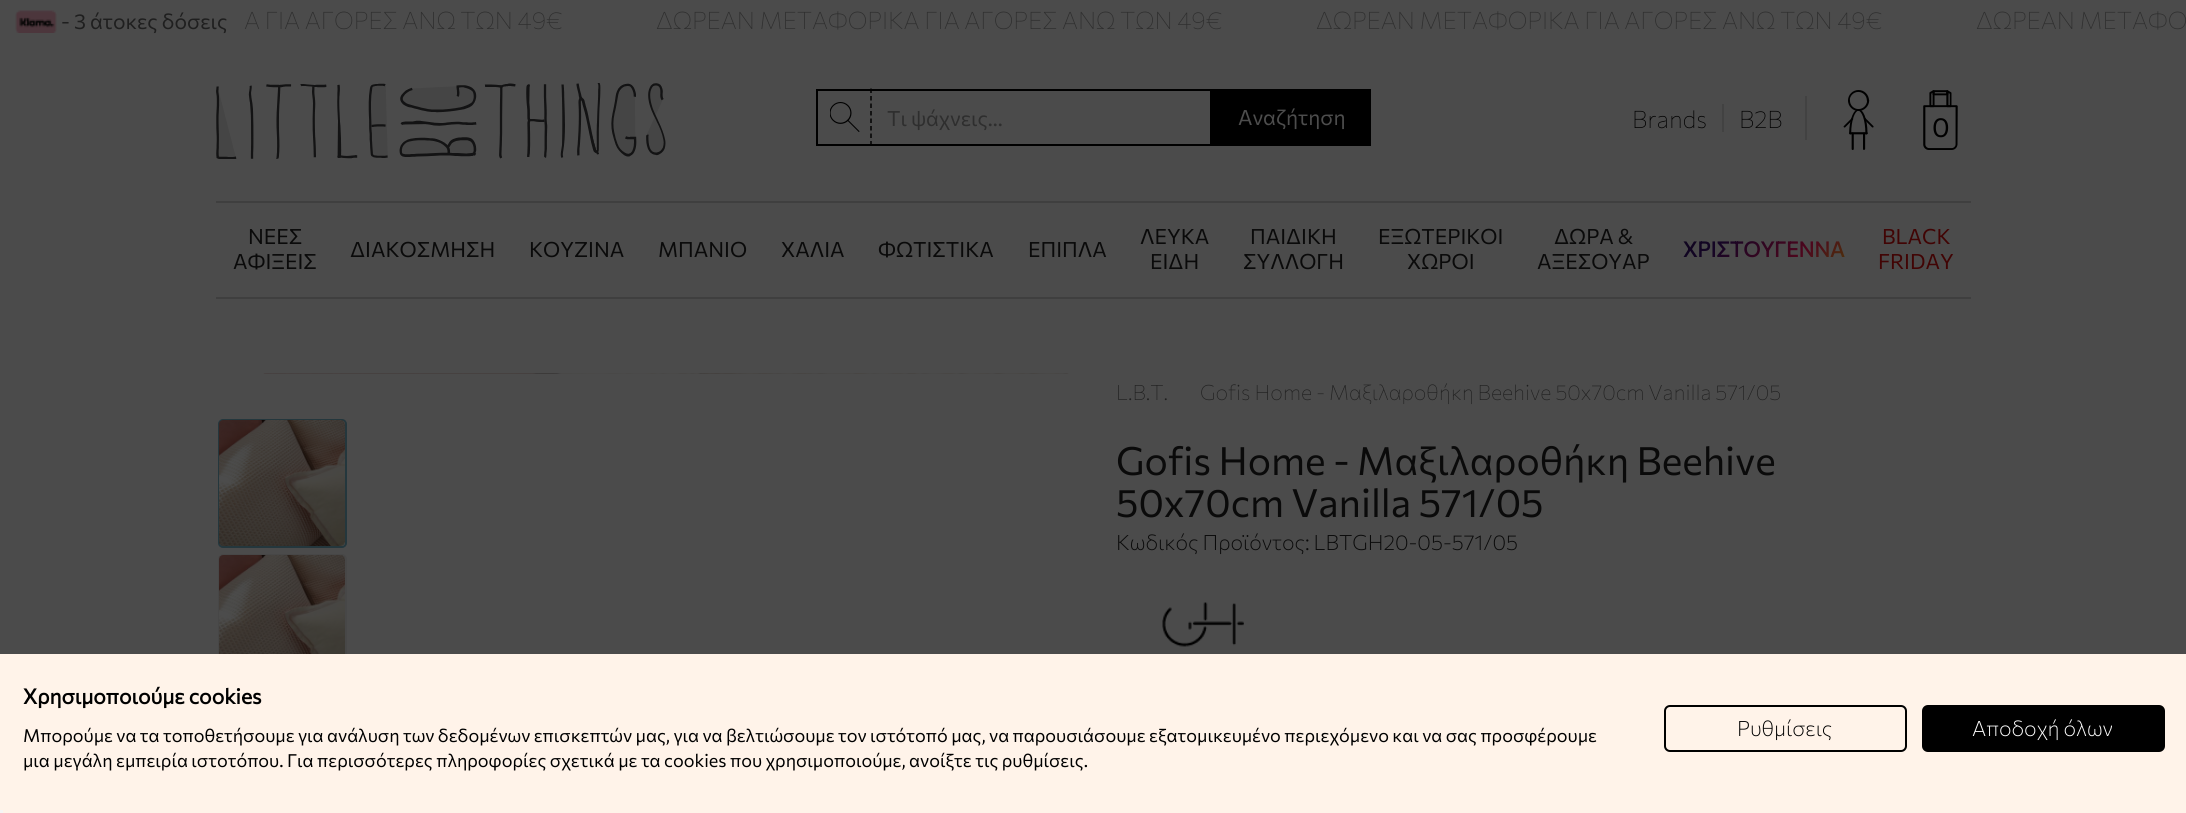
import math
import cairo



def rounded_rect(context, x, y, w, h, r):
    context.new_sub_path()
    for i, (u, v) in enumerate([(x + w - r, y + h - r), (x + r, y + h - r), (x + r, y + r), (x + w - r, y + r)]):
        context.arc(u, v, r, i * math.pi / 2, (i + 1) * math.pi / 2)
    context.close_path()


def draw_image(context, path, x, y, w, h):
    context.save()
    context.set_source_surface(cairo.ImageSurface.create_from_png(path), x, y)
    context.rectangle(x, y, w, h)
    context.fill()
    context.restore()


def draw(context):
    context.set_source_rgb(75 / 255, 75 / 255, 75 / 255)
    context.paint()
    draw_image(context, "images/1.png", 15, 10, 42, 23)
    draw_image(context, "images/2.png", 216, 83, 450, 76)
    draw_image(context, "images/3.png", 830, 102, 30, 30)
    context.new_path()
    context.move_to(871, 88.5)
    context.line_to(871, 145.5)
    context.set_source_rgb(0, 0, 0)
    context.set_line_width(1.5)
    context.set_dash([4.5, 3])
    context.stroke()
    context.rectangle(817, 90, 394, 55)
    context.set_line_width(2)
    context.set_dash([])
    context.stroke()
    context.rectangle(1212, 89, 159, 57)
    context.fill()
    context.set_source_rgb(66 / 255, 66 / 255, 66 / 255)
    context.rectangle(1805, 96, 2, 44)
    context.fill()
    context.rectangle(1722, 104, 2, 28)
    context.fill()
    draw_image(context, "images/4.png", 1843, 90, 31, 60)
    draw_image(context, "images/5.png", 1923, 90, 35, 60)
    context.set_source_rgb(63 / 255, 63 / 255, 63 / 255)
    context.rectangle(216, 201, 1755, 2)
    context.fill()
    context.rectangle(216, 297, 1755, 2)
    context.fill()
    draw_image(context, "images/6.png", 263, 373, 806, 1)
    rounded_rect(context, 219, 420, 127, 127, 4)
    context.set_source_rgb(36 / 255, 55 / 255, 61 / 255)
    context.stroke()
    draw_image(context, "images/7.png", 219, 420, 126, 126)
    rounded_rect(context, 219, 555, 127, 127, 4)
    context.set_source_rgb(71 / 255, 71 / 255, 71 / 255)
    context.stroke()
    draw_image(context, "images/8.png", 219, 555, 126, 99)
    draw_image(context, "images/9.png", 1162, 602, 82, 45)
    context.set_source_rgb(1, 243 / 255, 233 / 255)
    context.rectangle(0, 654, 2186, 159)
    context.fill()
    rounded_rect(context, 1665, 706, 241, 45, 5)
    context.set_source_rgb(0, 0, 0)
    context.stroke()
    rounded_rect(context, 1923, 706, 241, 45, 5)
    context.fill_preserve()
    context.stroke()
    context.set_source_rgb(245 / 255, 245 / 255, 245 / 255)
    context.rectangle(0, 810, 3, 3)
    context.fill()
    context.select_font_face("Commissioner")
    context.set_font_size(21)
    context.set_source_rgb(31 / 255, 31 / 255, 31 / 255)
    context.move_to(61, 29)
    context.show_text("- 3 άτοκες δόσεις")
    context.select_font_face("Commissioner Thin")
    context.set_font_size(24)
    context.set_source_rgb(46 / 255, 46 / 255, 46 / 255)
    context.move_to(244, 29)
    context.show_text("Α ΓΙΑ ΑΓΟΡΕΣ ΑΝΩ ΤΩΝ 49€")
    context.move_to(656, 29)
    context.show_text("ΔΩΡΕΑΝ ΜΕΤΑΦΟΡΙΚΑ ΓΙΑ ΑΓΟΡΕΣ ΑΝΩ ΤΩΝ 49€")
    context.move_to(1316, 29)
    context.show_text("ΔΩΡΕΑΝ ΜΕΤΑΦΟΡΙΚΑ ΓΙΑ ΑΓΟΡΕΣ ΑΝΩ ΤΩΝ 49€")
    context.move_to(1976, 29)
    context.show_text("ΔΩΡΕΑΝ ΜΕΤΑΦΟ")
    context.select_font_face("Commissioner")
    context.set_font_size(21)
    context.move_to(887, 126)
    context.show_text("Τι ψάχνεις...")
    context.set_source_rgb(77 / 255, 77 / 255, 77 / 255)
    context.move_to(1238, 125)
    context.show_text("Αναζήτηση")
    context.select_font_face("Commissioner Thin")
    context.set_font_size(24)
    context.set_source_rgb(0, 0, 0)
    context.move_to(1632, 128)
    context.show_text("Brands")
    context.move_to(1739, 128)
    context.show_text("B2B")
    context.select_font_face("Commissioner")
    context.set_font_size(27)
    context.move_to(1932, 137)
    context.show_text("0")
    context.set_font_size(21)
    context.set_source_rgb(10 / 255, 10 / 255, 10 / 255)
    context.move_to(248, 244)
    context.show_text("ΝΕΕΣ")
    context.move_to(233, 269)
    context.show_text("ΑΦΙΞΕΙΣ")
    context.move_to(350, 257)
    context.show_text("ΔΙΑΚΟΣΜΗΣΗ")
    context.move_to(529, 257)
    context.show_text("ΚΟΥΖΙΝΑ")
    context.move_to(658, 257)
    context.show_text("ΜΠΑΝΙΟ")
    context.move_to(781, 257)
    context.show_text("ΧΑΛΙΑ")
    context.move_to(878, 257)
    context.show_text("ΦΩΤΙΣΤΙΚΑ")
    context.move_to(1028, 257)
    context.show_text("ΕΠΙΠΛΑ")
    context.move_to(1140, 244)
    context.show_text("ΛΕΥΚΑ")
    context.move_to(1150, 269)
    context.show_text("ΕΙΔΗ")
    context.move_to(1250, 244)
    context.show_text("ΠΑΙΔΙΚΗ")
    context.move_to(1243, 269)
    context.show_text("ΣΥΛΛΟΓΗ")
    context.move_to(1378, 244)
    context.show_text("ΕΞΩΤΕΡΙΚΟΙ")
    context.move_to(1407, 269)
    context.show_text("ΧΩΡΟΙ")
    context.move_to(1554, 244)
    context.show_text("ΔΩΡΑ &")
    context.move_to(1537, 269)
    context.show_text("ΑΞΕΣΟΥΑΡ")
    context.select_font_face("Commissioner", cairo.FontSlant.NORMAL, cairo.FontWeight.BOLD)
    gradient = cairo.LinearGradient(1703, 188, 1825, 311)
    gradient.add_color_stop_rgba(0, 11 / 255, 6 / 255, 26 / 255, 1)
    gradient.add_color_stop_rgba(0.29, 20 / 255, 5 / 255, 37 / 255, 1)
    gradient.add_color_stop_rgba(0.67, 77 / 255, 6 / 255, 29 / 255, 1)
    gradient.add_color_stop_rgba(1, 77 / 255, 74 / 255, 0, 1)
    context.set_source(gradient)
    context.move_to(1683, 257)
    context.show_text("ΧΡΙΣΤΟΥΓΕΝΝΑ")
    context.select_font_face("Commissioner")
    context.set_source_rgb(65 / 255, 4 / 255, 4 / 255)
    context.move_to(1882, 244)
    context.show_text("BLACK")
    context.move_to(1878, 269)
    context.show_text("FRIDAY")
    context.select_font_face("Commissioner Thin")
    context.set_source_rgb(31 / 255, 31 / 255, 31 / 255)
    context.move_to(1116, 400)
    context.show_text("L.B.T.")
    context.move_to(1200, 400)
    context.show_text("Gofis Home - Μαξιλαροθήκη Beehive 50x70cm Vanilla 571/05")
    context.select_font_face("Commissioner")
    context.set_font_size(39)
    context.set_source_rgb(10 / 255, 10 / 255, 10 / 255)
    context.move_to(1116, 475)
    context.show_text("Gofis Home - Μαξιλαροθήκη Beehive")
    context.move_to(1116, 517)
    context.show_text("50x70cm Vanilla 571/05")
    context.select_font_face("Commissioner ExtraLight")
    context.set_font_size(21)
    context.move_to(1116, 550)
    context.show_text("Κωδικός Προϊόντος: LBTGH20-05-571/05")
    context.select_font_face("Commissioner", cairo.FontSlant.NORMAL, cairo.FontWeight.BOLD)
    context.set_source_rgb(0, 0, 0)
    context.move_to(23, 704)
    context.show_text("Χρησιμοποιούμε cookies")
    context.select_font_face("Commissioner")
    context.set_font_size(18)
    context.move_to(23, 742)
    context.show_text("Μπορούμε να τα τοποθετήσουμε για ανάλυση των δεδομένων επισκεπτών μας, για να βελτιώσουμε τον ιστότοπό μας, να παρουσιάσουμε εξατομικευμένο περιεχόμενο και να σας προσφέρουμε")
    context.move_to(23, 767)
    context.show_text("μια μεγάλη εμπειρία ιστοτόπου. Για περισσότερες πληροφορίες σχετικά με τα cookies που χρησιμοποιούμε, ανοίξτε τις ρυθμίσεις.")
    context.select_font_face("Commissioner ExtraLight")
    context.set_font_size(21)
    context.move_to(1737, 736)
    context.show_text("Ρυθμίσεις")
    context.set_source_rgb(1, 1, 1)
    context.move_to(1972, 736)
    context.show_text("Αποδοχή όλων")


surface = cairo.ImageSurface(cairo.Format.RGB24, 2186, 813)
context = cairo.Context(surface)
options = cairo.FontOptions()
options.set_hint_metrics(cairo.HintMetrics.OFF)
options.set_hint_style(cairo.HintStyle.NONE)
context.set_font_options(options)
context.set_miter_limit(4)
draw(context)
surface.write_to_png("out.png")
